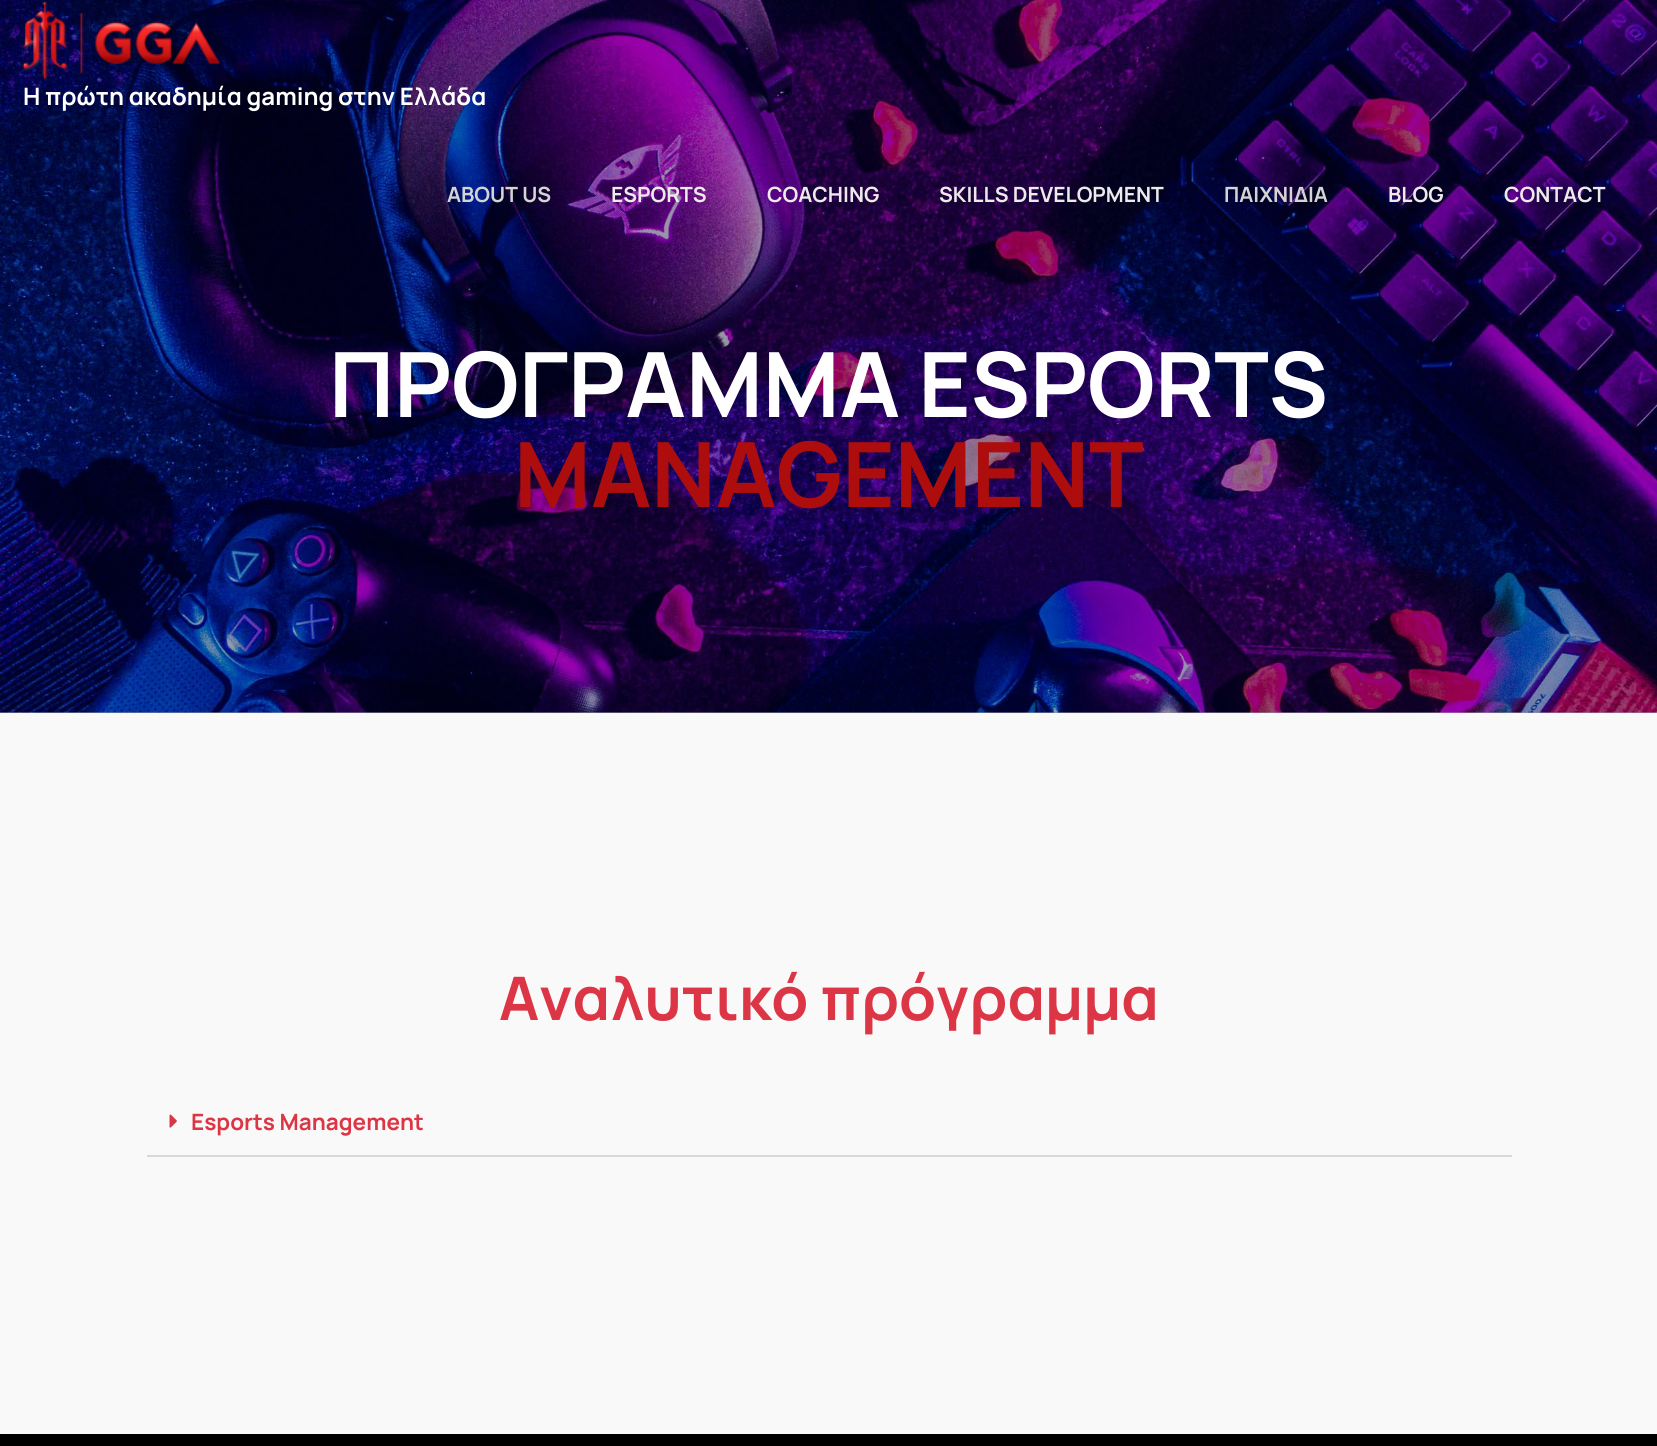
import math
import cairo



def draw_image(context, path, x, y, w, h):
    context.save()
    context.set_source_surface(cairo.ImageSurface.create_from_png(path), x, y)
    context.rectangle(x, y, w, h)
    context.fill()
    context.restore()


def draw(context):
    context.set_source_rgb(153 / 255, 153 / 255, 173 / 255)
    context.paint()
    draw_image(context, "images/2.png", 0, 0, 1657, 713)
    draw_image(context, "images/1.png", 22, 1, 200, 80)
    context.set_source_rgb(249 / 255, 249 / 255, 249 / 255)
    context.rectangle(0, 713, 1657, 721)
    context.fill()
    context.set_source_rgb(213 / 255, 216 / 255, 220 / 255)
    context.rectangle(147, 1155, 1365, 2)
    context.fill()
    draw_image(context, "images/3.png", 169, 1114, 8, 14)
    context.set_source_rgb(0, 0, 0)
    context.rectangle(0, 1434, 1657, 12)
    context.fill()
    context.select_font_face("Manrope", cairo.FontSlant.NORMAL, cairo.FontWeight.BOLD)
    context.set_font_size(24)
    context.set_source_rgb(1, 1, 1)
    context.move_to(23, 105)
    context.show_text("Η πρώτη ακαδημία gaming στην Ελλάδα")
    context.set_font_size(21)
    context.set_source_rgb(212 / 255, 212 / 255, 212 / 255)
    context.move_to(447, 202)
    context.show_text("ABOUT US")
    context.set_source_rgb(237 / 255, 234 / 255, 234 / 255)
    context.move_to(611, 202)
    context.show_text("ESPORTS")
    context.move_to(767, 202)
    context.show_text("COACHING")
    context.move_to(939, 202)
    context.show_text("SKILLS DEVELOPMENT")
    context.set_source_rgb(212 / 255, 212 / 255, 212 / 255)
    context.move_to(1224, 202)
    context.show_text("ΠΑΙΧΝΙΔΙΑ")
    context.set_source_rgb(237 / 255, 234 / 255, 234 / 255)
    context.move_to(1388, 202)
    context.show_text("BLOG")
    context.move_to(1504, 202)
    context.show_text("CONTACT")
    context.set_font_size(90)
    context.set_source_rgb(1, 1, 1)
    context.move_to(329, 417)
    context.show_text("ΠΡΟΓΡΑΜΜΑ ESPORTS")
    context.set_source_rgb(173 / 255, 13 / 255, 13 / 255)
    context.move_to(514, 507)
    context.show_text("MANAGEMENT")
    context.set_font_size(60)
    context.set_source_rgb(220 / 255, 53 / 255, 69 / 255)
    context.move_to(499, 1020)
    context.show_text("Αναλυτικό πρόγραμμα")
    context.set_font_size(22.5)
    context.move_to(191, 1130)
    context.show_text("Esports Management")


surface = cairo.ImageSurface(cairo.Format.RGB24, 1657, 1446)
context = cairo.Context(surface)
options = cairo.FontOptions()
options.set_hint_metrics(cairo.HintMetrics.OFF)
options.set_hint_style(cairo.HintStyle.NONE)
context.set_font_options(options)
context.set_miter_limit(4)
draw(context)
surface.write_to_png("out.png")
